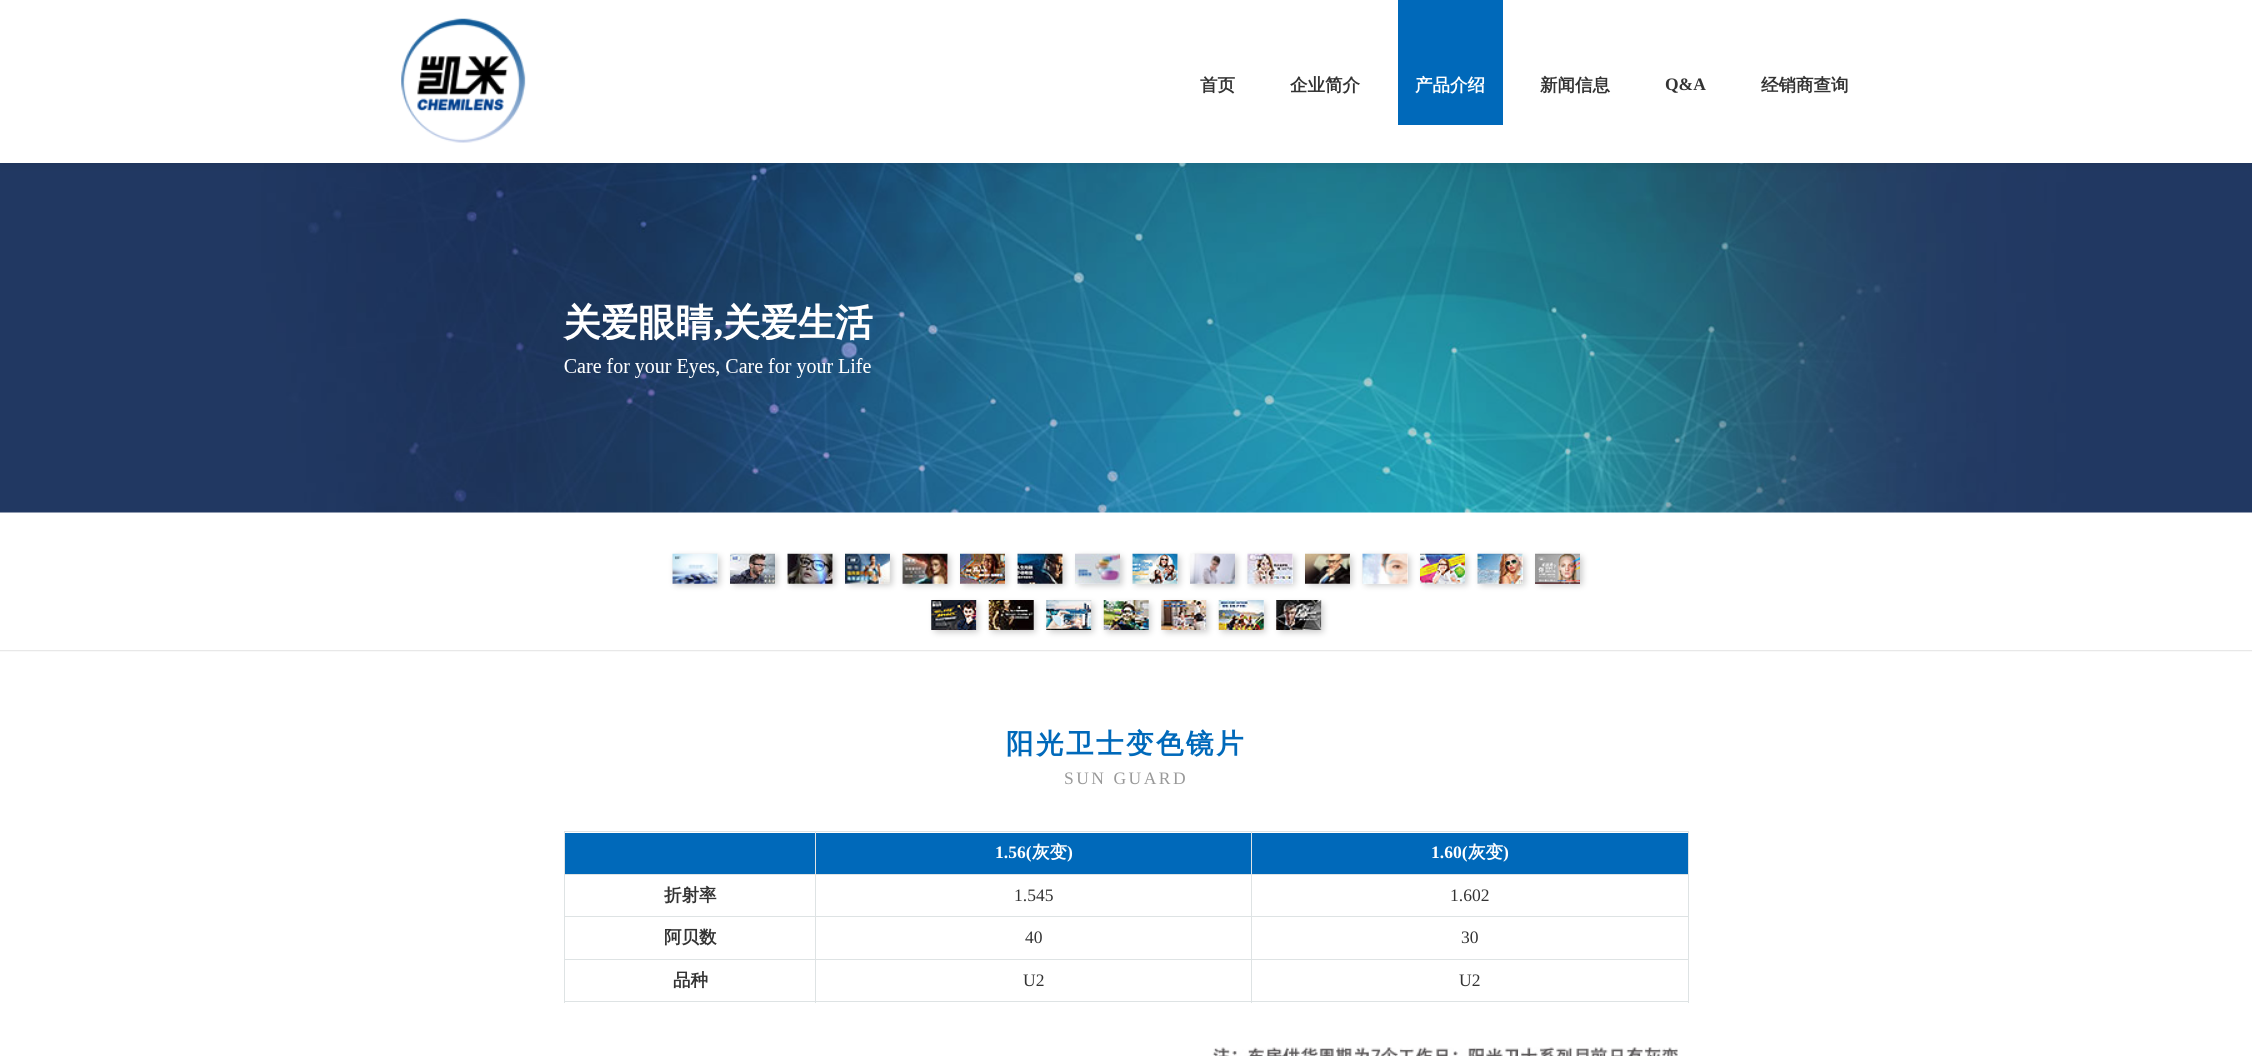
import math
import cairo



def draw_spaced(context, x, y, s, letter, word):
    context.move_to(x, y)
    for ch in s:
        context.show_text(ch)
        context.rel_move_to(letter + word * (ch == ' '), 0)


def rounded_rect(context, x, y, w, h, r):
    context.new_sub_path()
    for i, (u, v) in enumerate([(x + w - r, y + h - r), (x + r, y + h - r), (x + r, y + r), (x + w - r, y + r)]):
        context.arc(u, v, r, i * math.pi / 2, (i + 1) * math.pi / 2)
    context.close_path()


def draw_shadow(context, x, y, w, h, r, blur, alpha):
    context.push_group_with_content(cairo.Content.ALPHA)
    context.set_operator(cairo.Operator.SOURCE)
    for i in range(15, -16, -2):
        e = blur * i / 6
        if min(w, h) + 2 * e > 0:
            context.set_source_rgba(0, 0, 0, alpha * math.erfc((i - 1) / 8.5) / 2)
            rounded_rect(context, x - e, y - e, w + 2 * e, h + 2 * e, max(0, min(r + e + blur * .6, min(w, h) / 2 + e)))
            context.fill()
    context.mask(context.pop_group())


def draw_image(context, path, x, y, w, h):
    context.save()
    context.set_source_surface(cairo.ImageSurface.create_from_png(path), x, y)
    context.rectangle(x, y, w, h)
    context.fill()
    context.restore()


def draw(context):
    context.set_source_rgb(1, 1, 1)
    context.paint()
    draw_image(context, "images/2.png", 0, 163, 2252, 489)
    context.set_source_rgb(0, 0, 0)
    draw_shadow(context, 0, 1, 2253, 163, 0, 5, 0.1)
    context.set_source_rgb(1, 1, 1)
    context.rectangle(0, 0, 2252, 163)
    context.fill()
    draw_image(context, "images/1.png", 401, 18, 125, 125)
    context.set_source_rgb(0, 105 / 255, 186 / 255)
    context.rectangle(1398, 0, 105, 125)
    context.fill()
    context.set_source_rgb(222 / 255, 227 / 255, 228 / 255)
    context.rectangle(564, 831, 1125, 1)
    context.fill()
    context.rectangle(1688, 831, 1, 172)
    context.fill()
    context.rectangle(564, 1001, 1125, 1)
    context.fill()
    context.rectangle(564, 831, 1, 172)
    context.fill()
    context.set_source_rgb(0, 105 / 255, 186 / 255)
    context.rectangle(565, 833, 250, 41)
    context.fill()
    context.rectangle(816, 833, 872, 41)
    context.fill()
    context.set_source_rgb(222 / 255, 227 / 255, 228 / 255)
    context.rectangle(1251, 874, 438, 1)
    context.fill()
    context.rectangle(1251, 916, 438, 1)
    context.fill()
    context.rectangle(1251, 959, 438, 1)
    context.fill()
    context.rectangle(1251, 959, 1, 44)
    context.fill()
    context.rectangle(815, 959, 438, 1)
    context.fill()
    context.rectangle(1251, 916, 1, 44)
    context.fill()
    context.rectangle(815, 916, 438, 1)
    context.fill()
    context.rectangle(1251, 874, 1, 44)
    context.fill()
    context.rectangle(815, 874, 438, 1)
    context.fill()
    context.rectangle(815, 959, 1, 44)
    context.fill()
    context.rectangle(564, 959, 252, 1)
    context.fill()
    context.rectangle(815, 916, 1, 44)
    context.fill()
    context.rectangle(564, 916, 252, 1)
    context.fill()
    context.rectangle(815, 874, 1, 44)
    context.fill()
    context.rectangle(564, 874, 252, 1)
    context.fill()
    context.rectangle(815, 831, 1, 44)
    context.fill()
    context.rectangle(1251, 831, 1, 44)
    context.fill()
    draw_image(context, "images/3.png", 1212, 1047, 466, 9)
    context.select_font_face("WenQuanYi Zen Hei", cairo.FontSlant.NORMAL, cairo.FontWeight.BOLD)
    context.set_font_size(17.5)
    context.set_source_rgb(51 / 255, 51 / 255, 51 / 255)
    context.move_to(1200, 91)
    context.show_text("首页")
    context.move_to(1290, 91)
    context.show_text("企业简介")
    context.set_source_rgb(1, 1, 1)
    context.move_to(1415, 91)
    context.show_text("产品介绍")
    context.set_source_rgb(51 / 255, 51 / 255, 51 / 255)
    context.move_to(1540, 91)
    context.show_text("新闻信息")
    context.select_font_face("Liberation Serif", cairo.FontSlant.NORMAL, cairo.FontWeight.BOLD)
    context.move_to(1665, 90)
    context.show_text("Q&A")
    context.select_font_face("WenQuanYi Zen Hei", cairo.FontSlant.NORMAL, cairo.FontWeight.BOLD)
    context.move_to(1761, 91)
    context.show_text("经销商查询")
    context.set_font_size(27.5)
    context.set_source_rgb(0, 105 / 255, 186 / 255)
    draw_spaced(context, 1006, 753, "阳光卫士变色镜片", 2.5, 0)
    context.select_font_face("Liberation Serif")
    context.set_font_size(17.5)
    context.set_source_rgb(153 / 255, 153 / 255, 153 / 255)
    draw_spaced(context, 1064, 784, "SUN GUARD", 2.5, 0)
    context.select_font_face("Liberation Serif", cairo.FontSlant.NORMAL, cairo.FontWeight.BOLD)
    context.set_source_rgb(1, 1, 1)
    context.move_to(995, 858)
    context.show_text("1.56(")
    context.select_font_face("WenQuanYi Zen Hei", cairo.FontSlant.NORMAL, cairo.FontWeight.BOLD)
    context.move_to(1032, 858)
    context.show_text("灰变")
    context.select_font_face("Liberation Serif", cairo.FontSlant.NORMAL, cairo.FontWeight.BOLD)
    context.move_to(1067, 858)
    context.show_text(")")
    context.move_to(1431, 858)
    context.show_text("1.60(")
    context.select_font_face("WenQuanYi Zen Hei", cairo.FontSlant.NORMAL, cairo.FontWeight.BOLD)
    context.move_to(1468, 858)
    context.show_text("灰变")
    context.select_font_face("Liberation Serif", cairo.FontSlant.NORMAL, cairo.FontWeight.BOLD)
    context.move_to(1503, 858)
    context.show_text(")")
    context.select_font_face("WenQuanYi Zen Hei", cairo.FontSlant.NORMAL, cairo.FontWeight.BOLD)
    context.set_source_rgb(51 / 255, 51 / 255, 51 / 255)
    context.move_to(664, 901)
    context.show_text("折射率")
    context.select_font_face("Liberation Serif")
    context.move_to(1014, 901)
    context.show_text("1.545")
    context.move_to(1450, 901)
    context.show_text("1.602")
    context.select_font_face("WenQuanYi Zen Hei", cairo.FontSlant.NORMAL, cairo.FontWeight.BOLD)
    context.move_to(664, 943)
    context.show_text("阿贝数")
    context.select_font_face("Liberation Serif")
    context.move_to(1025, 943)
    context.show_text("40")
    context.move_to(1461, 943)
    context.show_text("30")
    context.select_font_face("WenQuanYi Zen Hei", cairo.FontSlant.NORMAL, cairo.FontWeight.BOLD)
    context.move_to(673, 986)
    context.show_text("品种")
    context.select_font_face("Liberation Serif")
    context.move_to(1023, 986)
    context.show_text("U2")
    context.move_to(1459, 986)
    context.show_text("U2")


surface = cairo.ImageSurface(cairo.Format.RGB24, 2252, 1056)
context = cairo.Context(surface)
options = cairo.FontOptions()
options.set_hint_metrics(cairo.HintMetrics.OFF)
options.set_hint_style(cairo.HintStyle.NONE)
context.set_font_options(options)
context.set_miter_limit(4)
draw(context)
surface.write_to_png("out.png")
